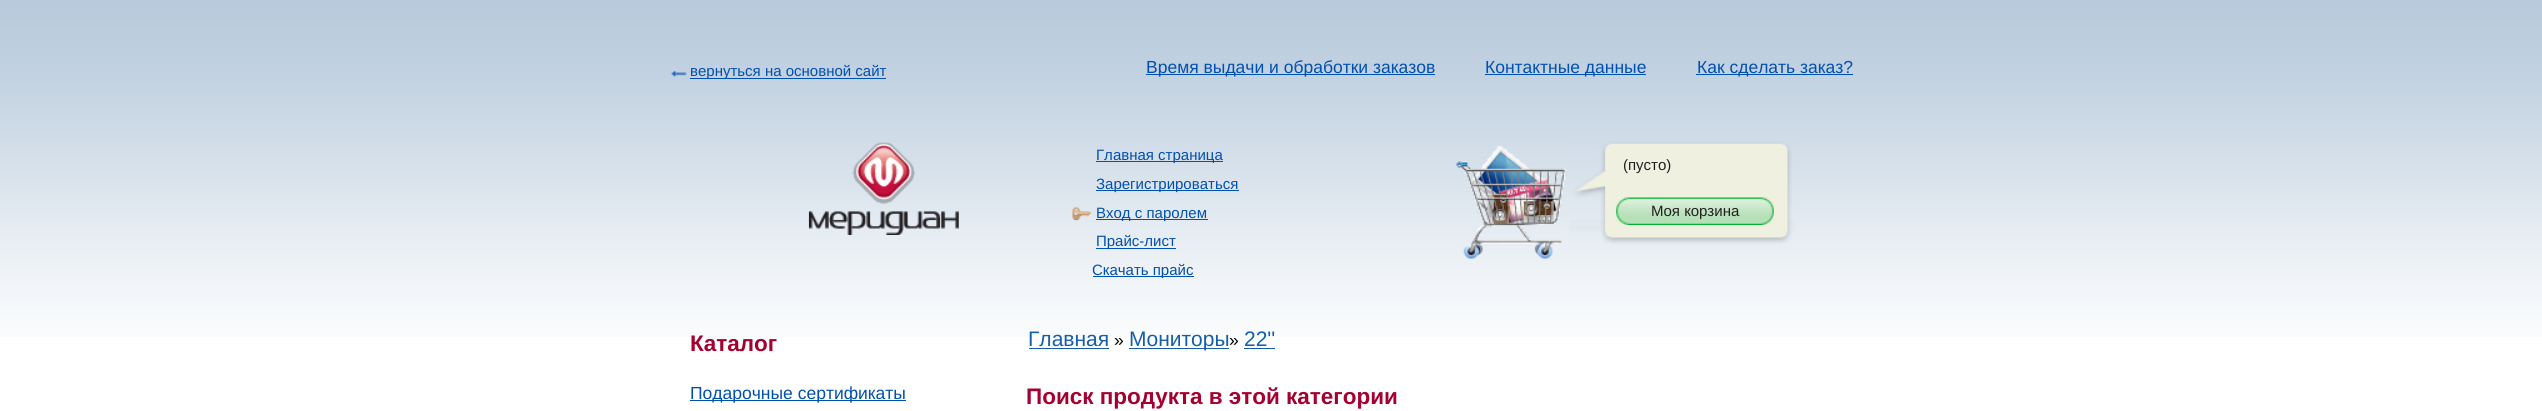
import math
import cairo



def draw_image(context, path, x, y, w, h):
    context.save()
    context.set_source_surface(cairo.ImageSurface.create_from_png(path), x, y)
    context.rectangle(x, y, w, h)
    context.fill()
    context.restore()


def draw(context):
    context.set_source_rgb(1, 1, 1)
    context.paint()
    draw_image(context, "images/1.png", 0, 0, 2542, 337)
    draw_image(context, "images/2.png", 671, 71, 16, 6)
    context.set_source_rgb(0, 80 / 255, 176 / 255)
    context.rectangle(690, 78, 196, 1)
    context.fill()
    context.rectangle(1146, 74, 289, 1)
    context.fill()
    context.rectangle(1485, 74, 161, 1)
    context.fill()
    context.rectangle(1696, 74, 157, 1)
    context.fill()
    draw_image(context, "images/3.png", 808, 142, 151, 93)
    context.rectangle(1096, 161, 127, 1)
    context.fill()
    context.rectangle(1096, 190, 143, 1)
    context.fill()
    draw_image(context, "images/4.png", 1072, 207, 20, 14)
    context.rectangle(1096, 219, 112, 1)
    context.fill()
    context.rectangle(1096, 248, 80, 1)
    context.fill()
    context.rectangle(1093, 276, 101, 1)
    context.fill()
    draw_image(context, "images/5.png", 1456, 146, 111, 113)
    draw_image(context, "images/6.png", 1570, 203, 225, 28)
    draw_image(context, "images/7.png", 1570, 140, 225, 63)
    draw_image(context, "images/8.png", 1570, 231, 225, 19)
    draw_image(context, "images/9.png", 1616, 197, 158, 28)
    context.rectangle(690, 400, 216, 1)
    context.fill()
    context.set_source_rgb(20 / 255, 94 / 255, 170 / 255)
    context.rectangle(1029, 348, 80, 1)
    context.fill()
    context.rectangle(1129, 348, 100, 1)
    context.fill()
    context.rectangle(1244, 348, 31, 1)
    context.fill()
    context.select_font_face("Liberation Sans")
    context.set_font_size(15)
    context.set_source_rgb(0, 80 / 255, 176 / 255)
    context.move_to(690, 76)
    context.show_text("вернуться на основной сайт")
    context.set_font_size(17.5)
    context.move_to(1146, 73)
    context.show_text("Время выдачи и обработки заказов")
    context.move_to(1485, 73)
    context.show_text("Контактные данные")
    context.move_to(1697, 73)
    context.show_text("Как сделать заказ?")
    context.set_font_size(15)
    context.move_to(1096, 160)
    context.show_text("Главная страница")
    context.move_to(1096, 189)
    context.show_text("Зарегистрироваться")
    context.move_to(1096, 218)
    context.show_text("Вход с паролем")
    context.move_to(1096, 246)
    context.show_text("Прайс-лист")
    context.move_to(1092, 275)
    context.show_text("Скачать прайс")
    context.set_source_rgb(35 / 255, 31 / 255, 32 / 255)
    context.move_to(1623, 170)
    context.show_text("(пусто)")
    context.move_to(1651, 216)
    context.show_text("Моя корзина")
    context.select_font_face("Liberation Sans", cairo.FontSlant.NORMAL, cairo.FontWeight.BOLD)
    context.set_font_size(22.5)
    context.set_source_rgb(164 / 255, 0, 48 / 255)
    context.move_to(690, 351)
    context.show_text("Каталог")
    context.select_font_face("Liberation Sans")
    context.set_font_size(17.5)
    context.set_source_rgb(0, 80 / 255, 176 / 255)
    context.move_to(690, 399)
    context.show_text("Подарочные сертификаты")
    context.set_font_size(21)
    context.set_source_rgb(20 / 255, 94 / 255, 170 / 255)
    context.move_to(1028, 346)
    context.show_text("Главная")
    context.set_font_size(17.5)
    context.set_source_rgb(0, 0, 0)
    context.move_to(1114, 346)
    context.show_text("»")
    context.set_font_size(21)
    context.set_source_rgb(20 / 255, 94 / 255, 170 / 255)
    context.move_to(1129, 346)
    context.show_text("Мониторы")
    context.set_font_size(17.5)
    context.set_source_rgb(0, 0, 0)
    context.move_to(1229, 346)
    context.show_text("»")
    context.set_font_size(21)
    context.set_source_rgb(20 / 255, 94 / 255, 170 / 255)
    context.move_to(1244, 346)
    context.show_text("22''")
    context.select_font_face("Liberation Sans", cairo.FontSlant.NORMAL, cairo.FontWeight.BOLD)
    context.set_font_size(22.5)
    context.set_source_rgb(164 / 255, 0, 48 / 255)
    context.move_to(1026, 404)
    context.show_text("Поиск продукта в этой категории")


surface = cairo.ImageSurface(cairo.Format.RGB24, 2542, 411)
context = cairo.Context(surface)
options = cairo.FontOptions()
options.set_hint_metrics(cairo.HintMetrics.OFF)
options.set_hint_style(cairo.HintStyle.NONE)
context.set_font_options(options)
context.set_miter_limit(4)
draw(context)
surface.write_to_png("out.png")
